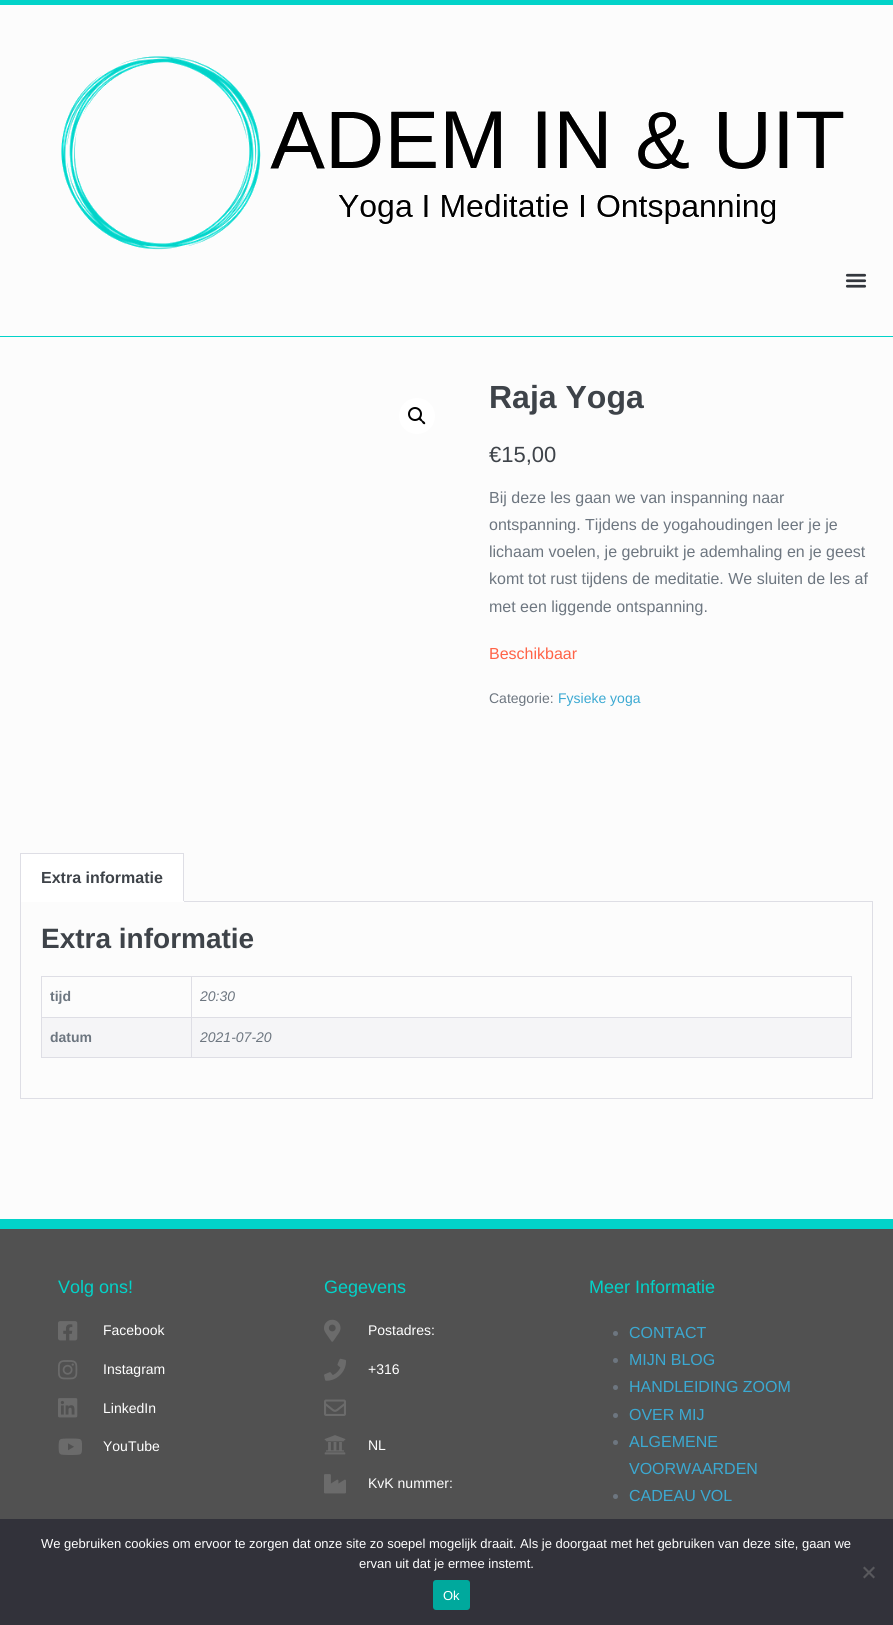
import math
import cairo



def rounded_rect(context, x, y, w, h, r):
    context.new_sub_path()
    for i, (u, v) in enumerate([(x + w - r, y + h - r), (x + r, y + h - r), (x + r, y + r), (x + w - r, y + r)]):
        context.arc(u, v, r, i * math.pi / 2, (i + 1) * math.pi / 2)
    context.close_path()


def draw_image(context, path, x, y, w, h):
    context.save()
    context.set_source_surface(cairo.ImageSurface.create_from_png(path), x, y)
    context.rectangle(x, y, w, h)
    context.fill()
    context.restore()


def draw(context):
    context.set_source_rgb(252 / 255, 252 / 255, 252 / 255)
    context.paint()
    context.set_source_rgb(2 / 255, 211 / 255, 201 / 255)
    context.rectangle(0, 0, 893, 5)
    context.fill()
    context.rectangle(0, 336, 893, 1)
    context.fill()
    draw_image(context, "images/1.png", 61, 56, 783, 194)
    draw_image(context, "images/2.png", 845, 273, 22, 15)
    context.set_source_rgb(1, 1, 1)
    context.arc(417, 416, 18, 0, 2 * math.pi)
    context.fill()
    context.arc(415, 414, 6, 0, 2 * math.pi)
    context.set_source_rgb(0, 0, 0)
    context.stroke()
    context.new_path()
    context.move_to(419, 418)
    context.curve_to(420.5, 417, 422, 419.5, 422.5, 420.5)
    context.curve_to(423.5, 421, 426, 422.5, 425, 424)
    context.curve_to(423.5, 425, 422, 422.5, 421.5, 421.5)
    context.curve_to(420.5, 421, 418, 419.5, 419, 418)
    context.close_path()
    context.fill()
    context.set_source_rgb(1, 1, 1)
    context.rectangle(21, 854, 162, 47)
    context.fill()
    context.set_source_rgb(222 / 255, 222 / 255, 229 / 255)
    context.rectangle(20, 853, 164, 1)
    context.fill()
    context.rectangle(20.5, 901.5, 852, 197)
    context.set_line_width(1)
    context.stroke()
    context.rectangle(183, 853, 1, 49)
    context.fill()
    context.set_source_rgb(1, 1, 1)
    context.rectangle(20, 901, 164, 1)
    context.fill()
    context.set_source_rgb(222 / 255, 222 / 255, 229 / 255)
    context.rectangle(20, 853, 1, 49)
    context.fill()
    context.rectangle(41, 976, 811, 1)
    context.fill()
    context.rectangle(851, 976, 1, 82)
    context.fill()
    context.rectangle(41, 1057, 811, 1)
    context.fill()
    context.rectangle(41, 976, 1, 82)
    context.fill()
    context.rectangle(191, 1017, 661, 1)
    context.fill()
    context.rectangle(191, 1017, 1, 41)
    context.fill()
    context.rectangle(41, 1017, 151, 1)
    context.fill()
    context.rectangle(191, 976, 1, 42)
    context.fill()
    context.set_source_rgb(245 / 255, 245 / 255, 247 / 255)
    context.rectangle(42, 1018, 149, 39)
    context.fill()
    context.rectangle(192, 1018, 659, 39)
    context.fill()
    context.set_source_rgb(2 / 255, 211 / 255, 201 / 255)
    context.rectangle(0, 1219, 893, 10)
    context.fill()
    context.set_source_rgb(81 / 255, 81 / 255, 81 / 255)
    context.rectangle(0, 1229, 893, 290)
    context.fill()
    draw_image(context, "images/3.png", 58, 1321, 20, 20)
    draw_image(context, "images/4.png", 58, 1360, 20, 20)
    draw_image(context, "images/5.png", 58, 1398, 20, 20)
    draw_image(context, "images/6.png", 58, 1438, 24, 17)
    draw_image(context, "images/7.png", 324, 1319, 17, 23)
    draw_image(context, "images/8.png", 324, 1358, 22, 23)
    draw_image(context, "images/9.png", 324, 1399, 22, 17)
    draw_image(context, "images/10.png", 324, 1435, 22, 20)
    draw_image(context, "images/11.png", 324, 1474, 22, 20)
    context.set_source_rgb(109 / 255, 118 / 255, 128 / 255)
    context.arc(615.5, 1333.5, 2.5, 0, 2 * math.pi)
    context.fill()
    context.arc(615.5, 1360.5, 2.5, 0, 2 * math.pi)
    context.fill()
    context.arc(615.5, 1387.5, 2.5, 0, 2 * math.pi)
    context.fill()
    context.arc(615.5, 1415.5, 2.5, 0, 2 * math.pi)
    context.fill()
    context.arc(615.5, 1442.5, 2.5, 0, 2 * math.pi)
    context.fill()
    context.arc(615.5, 1496.5, 2.5, 0, 2 * math.pi)
    context.fill()
    context.set_source_rgb(50 / 255, 50 / 255, 58 / 255)
    context.rectangle(0, 1519, 893, 106)
    context.fill()
    context.set_source_rgb(89 / 255, 89 / 255, 93 / 255)
    context.new_path()
    context.move_to(873.5, 1566.5)
    context.line_to(875, 1568)
    context.line_to(864.5, 1578.5)
    context.line_to(863, 1577)
    context.close_path()
    context.fill()
    context.new_path()
    context.move_to(863, 1568)
    context.line_to(864.5, 1566.5)
    context.line_to(875, 1577)
    context.line_to(873.5, 1578.5)
    context.close_path()
    context.fill()
    context.set_source_rgb(0, 169 / 255, 157 / 255)
    rounded_rect(context, 433, 1580, 37, 30, 3)
    context.fill()
    context.select_font_face("Liberation Sans", cairo.FontSlant.NORMAL, cairo.FontWeight.BOLD)
    context.set_font_size(32)
    context.set_source_rgb(62 / 255, 67 / 255, 73 / 255)
    context.move_to(489, 408)
    context.show_text("Raja Yoga")
    context.select_font_face("Liberation Sans")
    context.set_font_size(22)
    context.move_to(489, 462)
    context.show_text("€15,00")
    context.set_font_size(16)
    context.set_source_rgb(109 / 255, 118 / 255, 128 / 255)
    context.move_to(489, 503)
    context.show_text("Bij deze les gaan we van inspanning naar")
    context.move_to(489, 530)
    context.show_text("ontspanning. Tijdens de yogahoudingen leer je je")
    context.move_to(489, 557)
    context.show_text("lichaam voelen, je gebruikt je ademhaling en je geest")
    context.move_to(489, 584)
    context.show_text("komt tot rust tijdens de meditatie. We sluiten de les af")
    context.move_to(489, 612)
    context.show_text("met een liggende ontspanning.")
    context.set_source_rgb(1, 99 / 255, 71 / 255)
    context.move_to(489, 659)
    context.show_text("Beschikbaar")
    context.set_font_size(14)
    context.set_source_rgb(109 / 255, 118 / 255, 128 / 255)
    context.move_to(489, 703)
    context.show_text("Categorie:")
    context.set_source_rgb(59 / 255, 169 / 255, 210 / 255)
    context.move_to(558, 703)
    context.show_text("Fysieke yoga")
    context.select_font_face("Liberation Sans", cairo.FontSlant.NORMAL, cairo.FontWeight.BOLD)
    context.set_font_size(16)
    context.set_source_rgb(62 / 255, 67 / 255, 73 / 255)
    context.move_to(41, 883)
    context.show_text("Extra informatie")
    context.set_font_size(28)
    context.move_to(41, 948)
    context.show_text("Extra informatie")
    context.set_font_size(14)
    context.set_source_rgb(109 / 255, 118 / 255, 128 / 255)
    context.move_to(50, 1001)
    context.show_text("tijd")
    context.select_font_face("Liberation Sans", cairo.FontSlant.ITALIC)
    context.move_to(200, 1001)
    context.show_text("20:30")
    context.select_font_face("Liberation Sans", cairo.FontSlant.NORMAL, cairo.FontWeight.BOLD)
    context.move_to(50, 1042)
    context.show_text("datum")
    context.select_font_face("Liberation Sans", cairo.FontSlant.ITALIC)
    context.move_to(200, 1042)
    context.show_text("2021-07-20")
    context.select_font_face("Liberation Sans")
    context.set_font_size(18)
    context.set_source_rgb(2 / 255, 211 / 255, 201 / 255)
    context.move_to(58, 1293)
    context.show_text("Volg ons!")
    context.set_font_size(14)
    context.set_source_rgb(1, 1, 1)
    context.move_to(103, 1335)
    context.show_text("Facebook")
    context.move_to(103, 1374)
    context.show_text("Instagram")
    context.move_to(103, 1413)
    context.show_text("LinkedIn")
    context.move_to(103, 1451)
    context.show_text("YouTube")
    context.set_font_size(18)
    context.set_source_rgb(2 / 255, 211 / 255, 201 / 255)
    context.move_to(324, 1293)
    context.show_text("Gegevens")
    context.set_font_size(14)
    context.set_source_rgb(1, 1, 1)
    context.move_to(368, 1335)
    context.show_text("Postadres:")
    context.move_to(368, 1374)
    context.show_text("+316")
    context.move_to(368, 1450)
    context.show_text("NL")
    context.move_to(368, 1488)
    context.show_text("KvK nummer:")
    context.set_font_size(18)
    context.set_source_rgb(2 / 255, 211 / 255, 201 / 255)
    context.move_to(589, 1293)
    context.show_text("Meer Informatie")
    context.set_font_size(16)
    context.set_source_rgb(59 / 255, 169 / 255, 210 / 255)
    context.move_to(629, 1338)
    context.show_text("CONTACT")
    context.move_to(629, 1365)
    context.show_text("MIJN BLOG")
    context.move_to(629, 1392)
    context.show_text("HANDLEIDING ZOOM")
    context.move_to(629, 1420)
    context.show_text("OVER MIJ")
    context.move_to(629, 1447)
    context.show_text("ALGEMENE")
    context.move_to(629, 1474)
    context.show_text("VOORWAARDEN")
    context.move_to(629, 1501)
    context.show_text("CADEAU VOL")
    context.set_font_size(13)
    context.set_source_rgb(1, 1, 1)
    context.move_to(41, 1548)
    context.show_text("We gebruiken cookies om ervoor te zorgen dat onze site zo soepel mogelijk draait. Als je doorgaat met het gebruiken van deze site, gaan we")
    context.move_to(359, 1568)
    context.show_text("ervan uit dat je ermee instemt.")
    context.move_to(443, 1600)
    context.show_text("Ok")


surface = cairo.ImageSurface(cairo.Format.RGB24, 893, 1625)
context = cairo.Context(surface)
options = cairo.FontOptions()
options.set_hint_metrics(cairo.HintMetrics.OFF)
options.set_hint_style(cairo.HintStyle.NONE)
context.set_font_options(options)
context.set_miter_limit(4)
draw(context)
surface.write_to_png("out.png")
